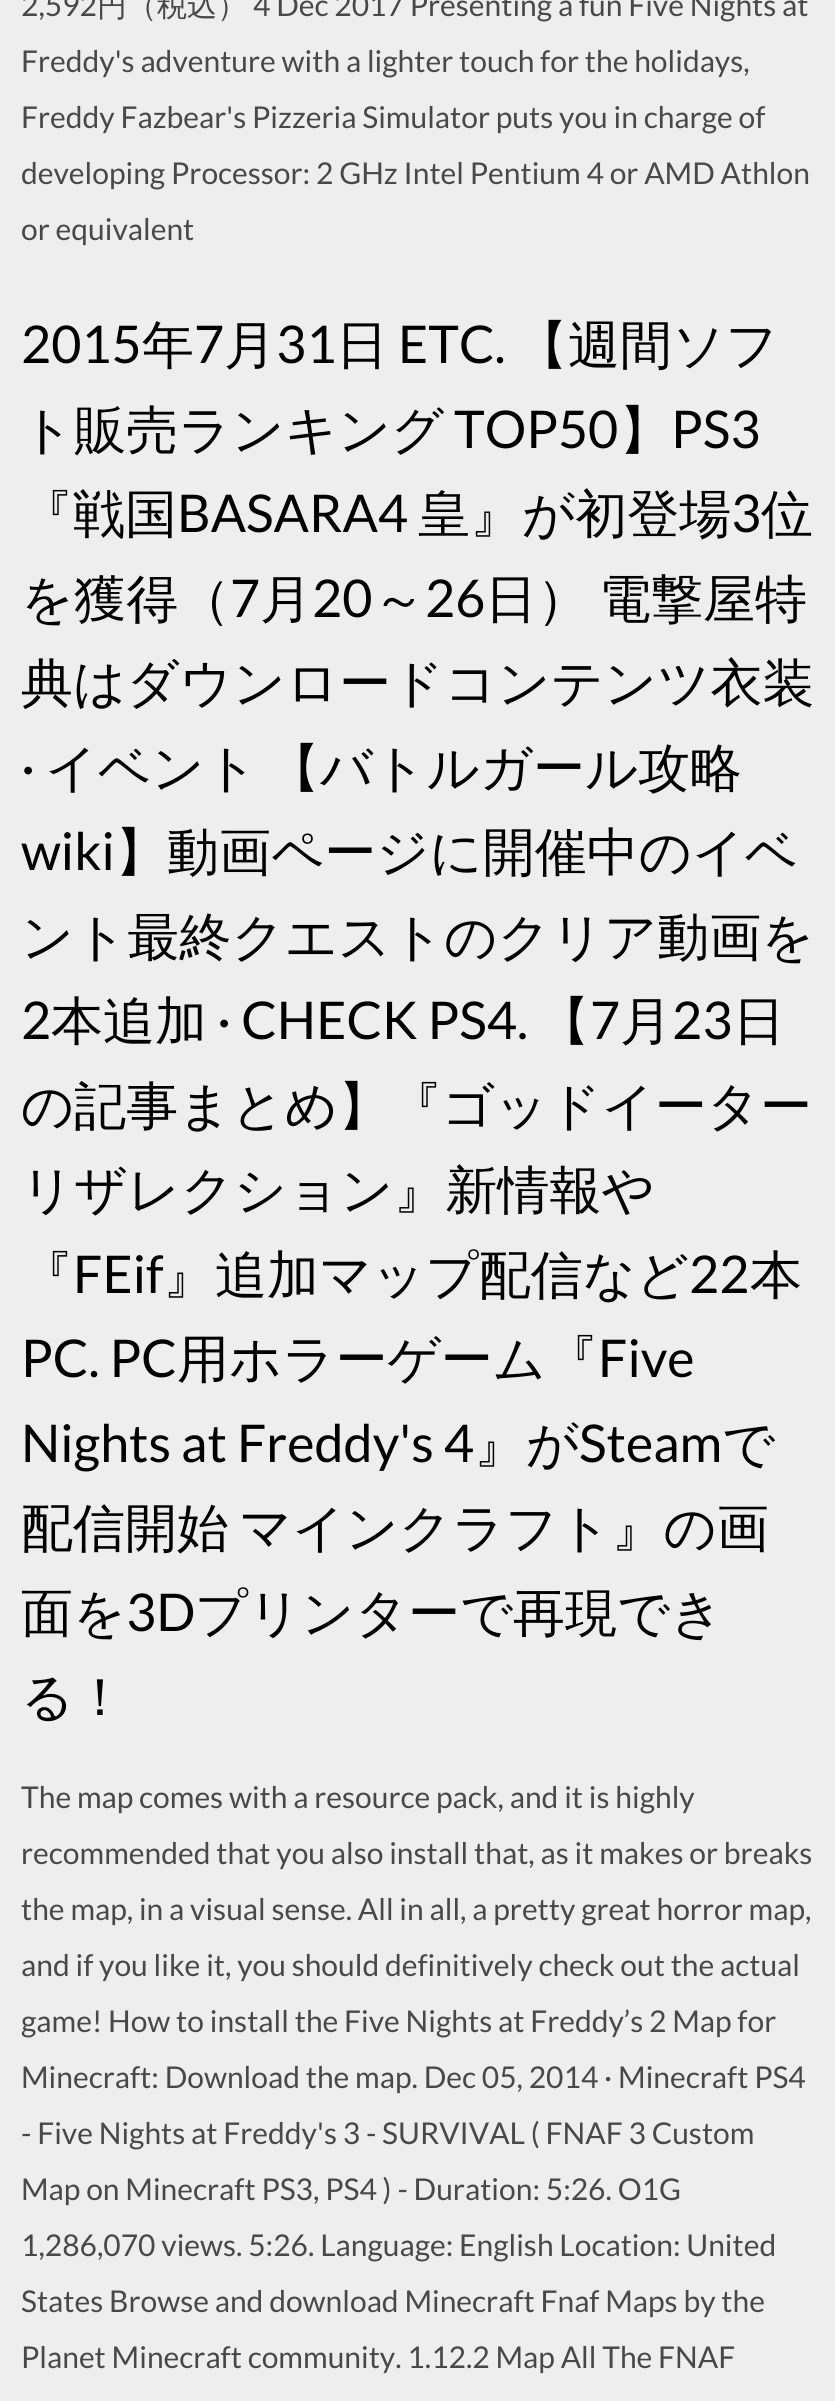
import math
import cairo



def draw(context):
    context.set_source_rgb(238 / 255, 238 / 255, 238 / 255)
    context.paint()
    context.select_font_face("Lato")
    context.set_font_size(30)
    context.set_source_rgb(72 / 255, 72 / 255, 72 / 255)
    context.move_to(21, 16)
    context.show_text("2,592")
    context.select_font_face("WenQuanYi Zen Hei Medium")
    context.move_to(97, 16)
    context.show_text("円（税込）")
    context.select_font_face("Lato")
    context.move_to(253, 16)
    context.show_text("4 Dec 2017 Presenting a fun Five Nights at")
    context.move_to(21, 72)
    context.show_text("Freddy's adventure with a lighter touch for the holidays,")
    context.move_to(21, 128)
    context.show_text("Freddy Fazbear's Pizzeria Simulator puts you in charge of")
    context.move_to(21, 184)
    context.show_text("developing Processor: 2 GHz Intel Pentium 4 or AMD Athlon")
    context.move_to(21, 240)
    context.show_text("or equivalent")
    context.set_font_size(52)
    context.set_source_rgb(0, 0, 0)
    context.move_to(21, 363)
    context.show_text("2015")
    context.select_font_face("WenQuanYi Zen Hei Medium")
    context.move_to(142, 363)
    context.show_text("年")
    context.select_font_face("Lato")
    context.move_to(194, 363)
    context.show_text("7")
    context.select_font_face("WenQuanYi Zen Hei Medium")
    context.move_to(224, 363)
    context.show_text("月")
    context.select_font_face("Lato")
    context.move_to(276, 363)
    context.show_text("31")
    context.select_font_face("WenQuanYi Zen Hei Medium")
    context.move_to(336, 363)
    context.show_text("日")
    context.select_font_face("Lato")
    context.move_to(398, 363)
    context.show_text("ETC.")
    context.select_font_face("WenQuanYi Zen Hei Medium")
    context.move_to(516, 363)
    context.show_text("【週間ソフ")
    context.move_to(21, 448)
    context.show_text("ト販売ランキング")
    context.select_font_face("Lato")
    context.move_to(454, 448)
    context.show_text("TOP50")
    context.select_font_face("WenQuanYi Zen Hei Medium")
    context.move_to(619, 448)
    context.show_text("】")
    context.select_font_face("Lato")
    context.move_to(671, 448)
    context.show_text("PS3")
    context.select_font_face("WenQuanYi Zen Hei Medium")
    context.move_to(21, 532)
    context.show_text("『戦国")
    context.select_font_face("Lato")
    context.move_to(177, 532)
    context.show_text("BASARA4")
    context.select_font_face("WenQuanYi Zen Hei Medium")
    context.move_to(418, 532)
    context.show_text("皇』が初登場")
    context.select_font_face("Lato")
    context.move_to(731, 532)
    context.show_text("3")
    context.select_font_face("WenQuanYi Zen Hei Medium")
    context.move_to(761, 532)
    context.show_text("位")
    context.move_to(21, 617)
    context.show_text("を獲得（")
    context.select_font_face("Lato")
    context.move_to(230, 617)
    context.show_text("7")
    context.select_font_face("WenQuanYi Zen Hei Medium")
    context.move_to(260, 617)
    context.show_text("月")
    context.select_font_face("Lato")
    context.move_to(312, 617)
    context.show_text("20")
    context.select_font_face("WenQuanYi Zen Hei Medium")
    context.move_to(373, 617)
    context.show_text("～")
    context.select_font_face("Lato")
    context.move_to(425, 617)
    context.show_text("26")
    context.select_font_face("WenQuanYi Zen Hei Medium")
    context.move_to(485, 617)
    context.show_text("日）")
    context.move_to(599, 617)
    context.show_text("電撃屋特")
    context.move_to(21, 701)
    context.show_text("典はダウンロードコンテンツ衣装")
    context.select_font_face("Lato")
    context.move_to(21, 786)
    context.show_text("·")
    context.select_font_face("WenQuanYi Zen Hei Medium")
    context.move_to(45, 786)
    context.show_text("イベント")
    context.move_to(268, 786)
    context.show_text("【バトルガール攻略")
    context.select_font_face("Lato")
    context.move_to(21, 870)
    context.show_text("wiki")
    context.select_font_face("WenQuanYi Zen Hei Medium")
    context.move_to(115, 870)
    context.show_text("】動画ページに開催中のイベ")
    context.move_to(21, 955)
    context.show_text("ント最終クエストのクリア動画を")
    context.select_font_face("Lato")
    context.move_to(21, 1039)
    context.show_text("2")
    context.select_font_face("WenQuanYi Zen Hei Medium")
    context.move_to(51, 1039)
    context.show_text("本追加")
    context.select_font_face("Lato")
    context.move_to(217, 1039)
    context.show_text("· CHECK PS4.")
    context.select_font_face("WenQuanYi Zen Hei Medium")
    context.move_to(538, 1039)
    context.show_text("【")
    context.select_font_face("Lato")
    context.move_to(590, 1039)
    context.show_text("7")
    context.select_font_face("WenQuanYi Zen Hei Medium")
    context.move_to(620, 1039)
    context.show_text("月")
    context.select_font_face("Lato")
    context.move_to(672, 1039)
    context.show_text("23")
    context.select_font_face("WenQuanYi Zen Hei Medium")
    context.move_to(733, 1039)
    context.show_text("日")
    context.move_to(21, 1124)
    context.show_text("の記事まとめ】『ゴッドイーター")
    context.move_to(21, 1208)
    context.show_text("リザレクション』新情報や")
    context.move_to(21, 1293)
    context.show_text("『")
    context.select_font_face("Lato")
    context.move_to(73, 1293)
    context.show_text("FEif")
    context.select_font_face("WenQuanYi Zen Hei Medium")
    context.move_to(163, 1293)
    context.show_text("』追加マップ配信など")
    context.select_font_face("Lato")
    context.move_to(689, 1293)
    context.show_text("22")
    context.select_font_face("WenQuanYi Zen Hei Medium")
    context.move_to(750, 1293)
    context.show_text("本")
    context.select_font_face("Lato")
    context.move_to(21, 1377)
    context.show_text("PC. PC")
    context.select_font_face("WenQuanYi Zen Hei Medium")
    context.move_to(177, 1377)
    context.show_text("用ホラーゲーム『")
    context.select_font_face("Lato")
    context.move_to(598, 1377)
    context.show_text("Five")
    context.move_to(21, 1462)
    context.show_text("Nights at Freddy's 4")
    context.select_font_face("WenQuanYi Zen Hei Medium")
    context.move_to(474, 1462)
    context.show_text("』が")
    context.select_font_face("Lato")
    context.move_to(579, 1462)
    context.show_text("Steam")
    context.select_font_face("WenQuanYi Zen Hei Medium")
    context.move_to(722, 1462)
    context.show_text("で")
    context.move_to(21, 1546)
    context.show_text("配信開始")
    context.move_to(239, 1546)
    context.show_text("マインクラフト』の画")
    context.move_to(21, 1631)
    context.show_text("面を")
    context.select_font_face("Lato")
    context.move_to(126, 1631)
    context.show_text("3D")
    context.select_font_face("WenQuanYi Zen Hei Medium")
    context.move_to(195, 1631)
    context.show_text("プリンターで再現でき")
    context.move_to(21, 1715)
    context.show_text("る！")
    context.select_font_face("Lato")
    context.set_font_size(30)
    context.set_source_rgb(72 / 255, 72 / 255, 72 / 255)
    context.move_to(21, 1808)
    context.show_text("The map comes with a resource pack, and it is highly")
    context.move_to(21, 1864)
    context.show_text("recommended that you also install that, as it makes or breaks")
    context.move_to(21, 1920)
    context.show_text("the map, in a visual sense. All in all, a pretty great horror map,")
    context.move_to(21, 1976)
    context.show_text("and if you like it, you should definitively check out the actual")
    context.move_to(21, 2032)
    context.show_text("game! How to install the Five Nights at Freddy’s 2 Map for")
    context.move_to(21, 2088)
    context.show_text("Minecraft: Download the map. Dec 05, 2014 · Minecraft PS4")
    context.move_to(21, 2144)
    context.show_text("- Five Nights at Freddy's 3 - SURVIVAL ( FNAF 3 Custom")
    context.move_to(21, 2200)
    context.show_text("Map on Minecraft PS3, PS4 ) - Duration: 5:26. O1G")
    context.move_to(21, 2256)
    context.show_text("1,286,070 views. 5:26. Language: English Location: United")
    context.move_to(21, 2312)
    context.show_text("States Browse and download Minecraft Fnaf Maps by the")
    context.move_to(21, 2368)
    context.show_text("Planet Minecraft community. 1.12.2 Map All The FNAF")


surface = cairo.ImageSurface(cairo.Format.RGB24, 835, 2401)
context = cairo.Context(surface)
options = cairo.FontOptions()
options.set_hint_metrics(cairo.HintMetrics.OFF)
options.set_hint_style(cairo.HintStyle.NONE)
context.set_font_options(options)
context.set_miter_limit(4)
draw(context)
surface.write_to_png("out.png")
